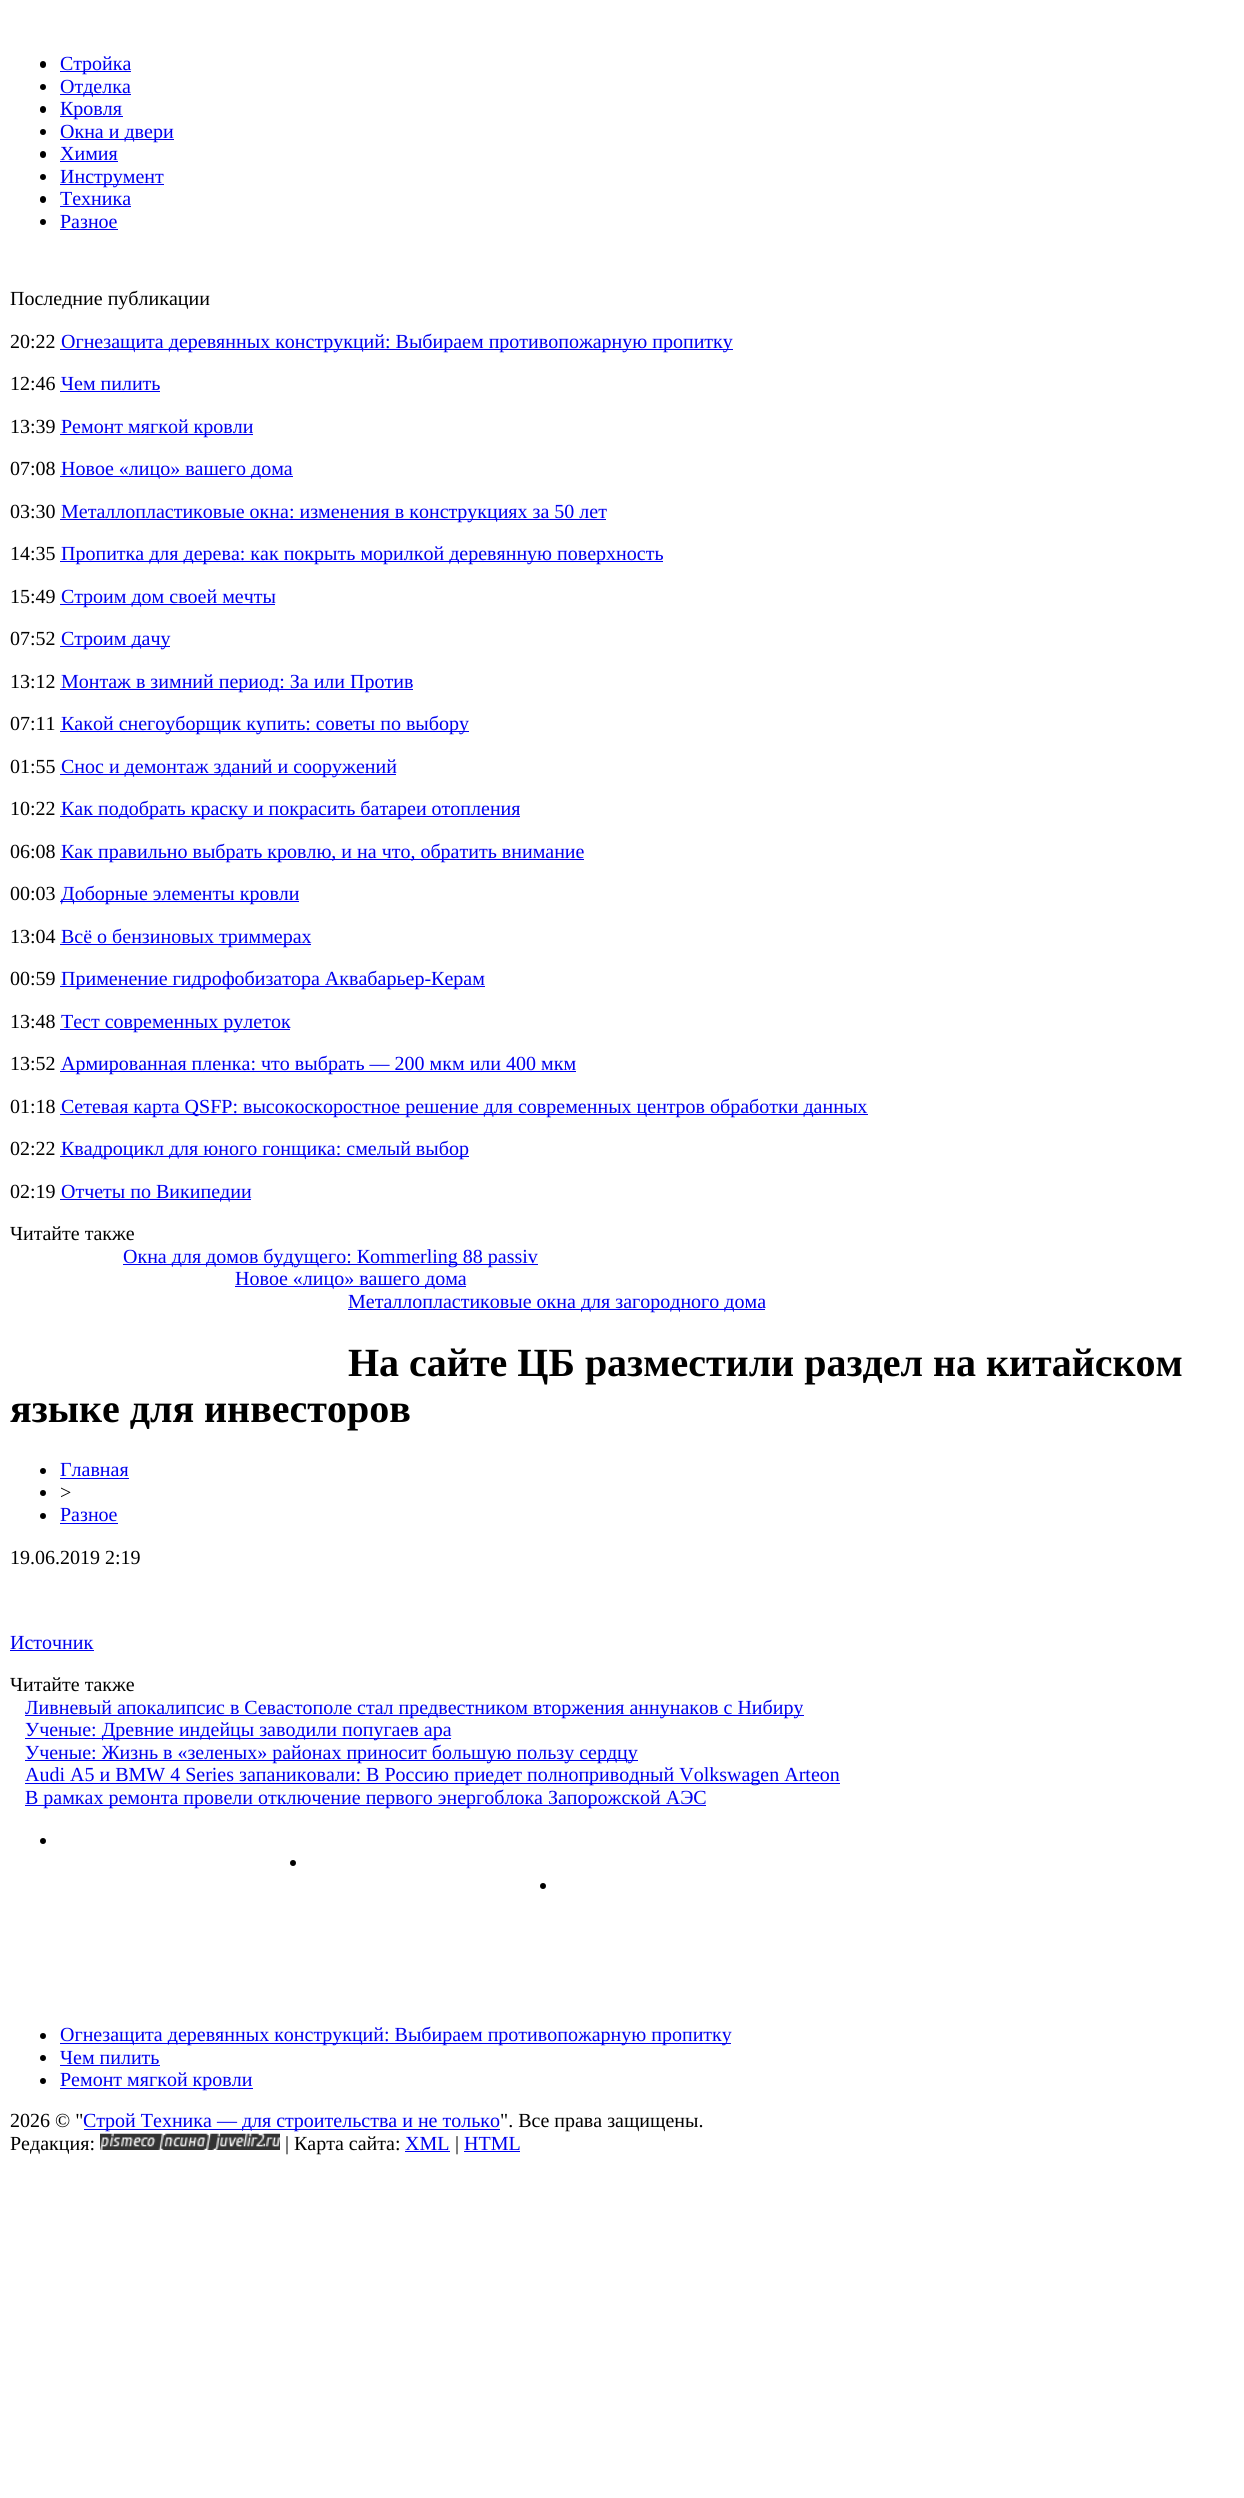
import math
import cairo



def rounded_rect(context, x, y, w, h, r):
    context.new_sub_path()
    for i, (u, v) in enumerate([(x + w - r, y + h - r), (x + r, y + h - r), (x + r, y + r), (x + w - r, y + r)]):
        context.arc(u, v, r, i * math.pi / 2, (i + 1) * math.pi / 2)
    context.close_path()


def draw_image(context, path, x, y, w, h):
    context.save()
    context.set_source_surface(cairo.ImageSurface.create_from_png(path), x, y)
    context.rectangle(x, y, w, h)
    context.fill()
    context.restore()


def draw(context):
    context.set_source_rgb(1, 1, 1)
    context.paint()
    context.set_source_rgb(0, 0, 0)
    rounded_rect(context, 40, 61, 6, 7, 3)
    context.fill()
    context.set_source_rgb(0, 0, 238 / 255)
    context.rectangle(60, 71, 71, 1)
    context.fill()
    context.set_source_rgb(0, 0, 0)
    context.arc(43, 87, 3, 0, 2 * math.pi)
    context.fill()
    context.set_source_rgb(0, 0, 238 / 255)
    context.rectangle(60, 94, 71, 1)
    context.fill()
    context.set_source_rgb(0, 0, 0)
    rounded_rect(context, 40, 106, 6, 7, 3)
    context.fill()
    context.set_source_rgb(0, 0, 238 / 255)
    context.rectangle(60, 116, 63, 1)
    context.fill()
    context.set_source_rgb(0, 0, 0)
    context.arc(43, 132, 3, 0, 2 * math.pi)
    context.fill()
    context.set_source_rgb(0, 0, 238 / 255)
    context.rectangle(60, 139, 114, 1)
    context.fill()
    context.set_source_rgb(0, 0, 0)
    rounded_rect(context, 40, 151, 6, 7, 3)
    context.fill()
    context.set_source_rgb(0, 0, 238 / 255)
    context.rectangle(60, 161, 58, 1)
    context.fill()
    context.set_source_rgb(0, 0, 0)
    context.arc(43, 177, 3, 0, 2 * math.pi)
    context.fill()
    context.set_source_rgb(0, 0, 238 / 255)
    context.rectangle(60, 184, 104, 1)
    context.fill()
    context.set_source_rgb(0, 0, 0)
    rounded_rect(context, 40, 196, 6, 7, 3)
    context.fill()
    context.set_source_rgb(0, 0, 238 / 255)
    context.rectangle(60, 206, 71, 1)
    context.fill()
    context.set_source_rgb(0, 0, 0)
    context.arc(43, 222, 3, 0, 2 * math.pi)
    context.fill()
    context.set_source_rgb(0, 0, 238 / 255)
    context.rectangle(60, 229, 58, 1)
    context.fill()
    context.rectangle(60, 349, 673, 1)
    context.fill()
    context.rectangle(60, 391, 100, 1)
    context.fill()
    context.rectangle(60, 434, 193, 1)
    context.fill()
    context.rectangle(60, 476, 233, 1)
    context.fill()
    context.rectangle(60, 519, 546, 1)
    context.fill()
    context.rectangle(60, 561, 603, 1)
    context.fill()
    context.rectangle(60, 604, 215, 1)
    context.fill()
    context.rectangle(60, 646, 110, 1)
    context.fill()
    context.rectangle(60, 689, 353, 1)
    context.fill()
    context.rectangle(60, 731, 409, 1)
    context.fill()
    context.rectangle(60, 774, 336, 1)
    context.fill()
    context.rectangle(60, 816, 460, 1)
    context.fill()
    context.rectangle(60, 859, 524, 1)
    context.fill()
    context.rectangle(60, 901, 239, 1)
    context.fill()
    context.rectangle(60, 944, 251, 1)
    context.fill()
    context.rectangle(60, 986, 425, 1)
    context.fill()
    context.rectangle(60, 1029, 230, 1)
    context.fill()
    context.rectangle(60, 1071, 516, 1)
    context.fill()
    context.rectangle(60, 1114, 808, 1)
    context.fill()
    context.rectangle(60, 1156, 409, 1)
    context.fill()
    context.rectangle(60, 1199, 191, 1)
    context.fill()
    context.rectangle(123, 1264, 415, 1)
    context.fill()
    context.rectangle(235, 1286, 231, 1)
    context.fill()
    context.rectangle(348, 1309, 417, 1)
    context.fill()
    context.set_source_rgb(0, 0, 0)
    context.arc(43, 1471, 3, 0, 2 * math.pi)
    context.fill()
    context.set_source_rgb(0, 0, 238 / 255)
    context.rectangle(60, 1478, 69, 1)
    context.fill()
    context.set_source_rgb(0, 0, 0)
    context.arc(43, 1493, 3, 0, 2 * math.pi)
    context.fill()
    context.arc(43, 1516, 3, 0, 2 * math.pi)
    context.fill()
    context.set_source_rgb(0, 0, 238 / 255)
    context.rectangle(60, 1523, 58, 1)
    context.fill()
    context.rectangle(10, 1650, 84, 1)
    context.fill()
    context.rectangle(25, 1715, 779, 1)
    context.fill()
    context.rectangle(25, 1738, 426, 1)
    context.fill()
    context.rectangle(25, 1760, 613, 1)
    context.fill()
    context.rectangle(25, 1783, 815, 1)
    context.fill()
    context.rectangle(25, 1805, 681, 1)
    context.fill()
    context.set_source_rgb(0, 0, 0)
    context.arc(43, 1841, 3, 0, 2 * math.pi)
    context.fill()
    context.arc(293, 1863, 3, 0, 2 * math.pi)
    context.fill()
    context.arc(543, 1886, 3, 0, 2 * math.pi)
    context.fill()
    context.arc(43, 2036, 3, 0, 2 * math.pi)
    context.fill()
    context.set_source_rgb(0, 0, 238 / 255)
    context.rectangle(60, 2043, 671, 1)
    context.fill()
    context.set_source_rgb(0, 0, 0)
    context.arc(43, 2058, 3, 0, 2 * math.pi)
    context.fill()
    context.set_source_rgb(0, 0, 238 / 255)
    context.rectangle(60, 2065, 100, 1)
    context.fill()
    context.set_source_rgb(0, 0, 0)
    context.arc(43, 2081, 3, 0, 2 * math.pi)
    context.fill()
    context.set_source_rgb(0, 0, 238 / 255)
    context.rectangle(60, 2088, 193, 1)
    context.fill()
    context.rectangle(84, 2129, 416, 1)
    context.fill()
    draw_image(context, "images/1.png", 100, 2133, 180, 17)
    context.rectangle(405, 2151, 45, 1)
    context.fill()
    context.rectangle(464, 2151, 56, 1)
    context.fill()
    context.select_font_face("Liberation Serif")
    context.set_font_size(20)
    context.move_to(60, 70)
    context.show_text("Стройка")
    context.move_to(60, 93)
    context.show_text("Отделка")
    context.move_to(60, 115)
    context.show_text("Кровля")
    context.move_to(60, 138)
    context.show_text("Окна и двери")
    context.move_to(60, 160)
    context.show_text("Химия")
    context.move_to(60, 183)
    context.show_text("Инструмент")
    context.move_to(60, 205)
    context.show_text("Техника")
    context.move_to(60, 228)
    context.show_text("Разное")
    context.set_source_rgb(0, 0, 0)
    context.move_to(10, 305)
    context.show_text("Последние публикации")
    context.move_to(10, 348)
    context.show_text("20:22")
    context.set_source_rgb(0, 0, 238 / 255)
    context.move_to(61, 348)
    context.show_text("Огнезащита деревянных конструкций: Выбираем противопожарную пропитку")
    context.set_source_rgb(0, 0, 0)
    context.move_to(10, 390)
    context.show_text("12:46")
    context.set_source_rgb(0, 0, 238 / 255)
    context.move_to(61, 390)
    context.show_text("Чем пилить")
    context.set_source_rgb(0, 0, 0)
    context.move_to(10, 433)
    context.show_text("13:39")
    context.set_source_rgb(0, 0, 238 / 255)
    context.move_to(61, 433)
    context.show_text("Ремонт мягкой кровли")
    context.set_source_rgb(0, 0, 0)
    context.move_to(10, 475)
    context.show_text("07:08")
    context.set_source_rgb(0, 0, 238 / 255)
    context.move_to(61, 475)
    context.show_text("Новое «лицо» вашего дома")
    context.set_source_rgb(0, 0, 0)
    context.move_to(10, 518)
    context.show_text("03:30")
    context.set_source_rgb(0, 0, 238 / 255)
    context.move_to(61, 518)
    context.show_text("Металлопластиковые окна: изменения в конструкциях за 50 лет")
    context.set_source_rgb(0, 0, 0)
    context.move_to(10, 560)
    context.show_text("14:35")
    context.set_source_rgb(0, 0, 238 / 255)
    context.move_to(61, 560)
    context.show_text("Пропитка для дерева: как покрыть морилкой деревянную поверхность")
    context.set_source_rgb(0, 0, 0)
    context.move_to(10, 603)
    context.show_text("15:49")
    context.set_source_rgb(0, 0, 238 / 255)
    context.move_to(61, 603)
    context.show_text("Строим дом своей мечты")
    context.set_source_rgb(0, 0, 0)
    context.move_to(10, 645)
    context.show_text("07:52")
    context.set_source_rgb(0, 0, 238 / 255)
    context.move_to(61, 645)
    context.show_text("Строим дачу")
    context.set_source_rgb(0, 0, 0)
    context.move_to(10, 688)
    context.show_text("13:12")
    context.set_source_rgb(0, 0, 238 / 255)
    context.move_to(61, 688)
    context.show_text("Монтаж в зимний период: За или Против")
    context.set_source_rgb(0, 0, 0)
    context.move_to(10, 730)
    context.show_text("07:11")
    context.set_source_rgb(0, 0, 238 / 255)
    context.move_to(61, 730)
    context.show_text("Какой снегоуборщик купить: советы по выбору")
    context.set_source_rgb(0, 0, 0)
    context.move_to(10, 773)
    context.show_text("01:55")
    context.set_source_rgb(0, 0, 238 / 255)
    context.move_to(61, 773)
    context.show_text("Снос и демонтаж зданий и сооружений")
    context.set_source_rgb(0, 0, 0)
    context.move_to(10, 815)
    context.show_text("10:22")
    context.set_source_rgb(0, 0, 238 / 255)
    context.move_to(61, 815)
    context.show_text("Как подобрать краску и покрасить батареи отопления")
    context.set_source_rgb(0, 0, 0)
    context.move_to(10, 858)
    context.show_text("06:08")
    context.set_source_rgb(0, 0, 238 / 255)
    context.move_to(61, 858)
    context.show_text("Как правильно выбрать кровлю, и на что, обратить внимание")
    context.set_source_rgb(0, 0, 0)
    context.move_to(10, 900)
    context.show_text("00:03")
    context.set_source_rgb(0, 0, 238 / 255)
    context.move_to(61, 900)
    context.show_text("Доборные элементы кровли")
    context.set_source_rgb(0, 0, 0)
    context.move_to(10, 943)
    context.show_text("13:04")
    context.set_source_rgb(0, 0, 238 / 255)
    context.move_to(61, 943)
    context.show_text("Всё о бензиновых триммерах")
    context.set_source_rgb(0, 0, 0)
    context.move_to(10, 985)
    context.show_text("00:59")
    context.set_source_rgb(0, 0, 238 / 255)
    context.move_to(61, 985)
    context.show_text("Применение гидрофобизатора Аквабарьер-Керам")
    context.set_source_rgb(0, 0, 0)
    context.move_to(10, 1028)
    context.show_text("13:48")
    context.set_source_rgb(0, 0, 238 / 255)
    context.move_to(61, 1028)
    context.show_text("Тест современных рулеток")
    context.set_source_rgb(0, 0, 0)
    context.move_to(10, 1070)
    context.show_text("13:52")
    context.set_source_rgb(0, 0, 238 / 255)
    context.move_to(61, 1070)
    context.show_text("Армированная пленка: что выбрать — 200 мкм или 400 мкм")
    context.set_source_rgb(0, 0, 0)
    context.move_to(10, 1113)
    context.show_text("01:18")
    context.set_source_rgb(0, 0, 238 / 255)
    context.move_to(61, 1113)
    context.show_text("Сетевая карта QSFP: высокоскоростное решение для современных центров обработки данных")
    context.set_source_rgb(0, 0, 0)
    context.move_to(10, 1155)
    context.show_text("02:22")
    context.set_source_rgb(0, 0, 238 / 255)
    context.move_to(61, 1155)
    context.show_text("Квадроцикл для юного гонщика: смелый выбор")
    context.set_source_rgb(0, 0, 0)
    context.move_to(10, 1198)
    context.show_text("02:19")
    context.set_source_rgb(0, 0, 238 / 255)
    context.move_to(61, 1198)
    context.show_text("Отчеты по Википедии")
    context.set_source_rgb(0, 0, 0)
    context.move_to(10, 1240)
    context.show_text("Читайте также")
    context.set_source_rgb(0, 0, 238 / 255)
    context.move_to(123, 1263)
    context.show_text("Окна для домов будущего: Кommerling 88 passiv")
    context.move_to(235, 1285)
    context.show_text("Новое «лицо» вашего дома")
    context.move_to(348, 1308)
    context.show_text("Металлопластиковые окна для загородного дома")
    context.select_font_face("Liberation Serif", cairo.FontSlant.NORMAL, cairo.FontWeight.BOLD)
    context.set_font_size(40)
    context.set_source_rgb(0, 0, 0)
    context.move_to(348, 1376)
    context.show_text("На сайте ЦБ разместили раздел на китайском")
    context.move_to(10, 1422)
    context.show_text("языке для инвесторов")
    context.select_font_face("Liberation Serif")
    context.set_font_size(20)
    context.set_source_rgb(0, 0, 238 / 255)
    context.move_to(60, 1476)
    context.show_text("Главная")
    context.set_source_rgb(0, 0, 0)
    context.move_to(60, 1499)
    context.show_text(">")
    context.set_source_rgb(0, 0, 238 / 255)
    context.move_to(60, 1521)
    context.show_text("Разное")
    context.set_source_rgb(0, 0, 0)
    context.move_to(10, 1564)
    context.show_text("19.06.2019 2:19")
    context.set_source_rgb(0, 0, 238 / 255)
    context.move_to(10, 1649)
    context.show_text("Источник")
    context.set_source_rgb(0, 0, 0)
    context.move_to(10, 1691)
    context.show_text("Читайте также")
    context.set_source_rgb(0, 0, 238 / 255)
    context.move_to(25, 1714)
    context.show_text("Ливневый апокалипсис в Севастополе стал предвестником вторжения аннунаков с Нибиру")
    context.move_to(25, 1736)
    context.show_text("Ученые: Древние индейцы заводили попугаев ара")
    context.move_to(25, 1759)
    context.show_text("Ученые: Жизнь в «зеленых» районах приносит большую пользу сердцу")
    context.move_to(25, 1781)
    context.show_text("Audi A5 и BMW 4 Series запаниковали: В Россию приедет полноприводный Volkswagen Arteon")
    context.move_to(25, 1804)
    context.show_text("В рамках ремонта провели отключение первого энергоблока Запорожской АЭС")
    context.move_to(60, 2041)
    context.show_text("Огнезащита деревянных конструкций: Выбираем противопожарную пропитку")
    context.move_to(60, 2064)
    context.show_text("Чем пилить")
    context.move_to(60, 2086)
    context.show_text("Ремонт мягкой кровли")
    context.set_source_rgb(0, 0, 0)
    context.move_to(10, 2127)
    context.show_text("2026 © \"")
    context.set_source_rgb(0, 0, 238 / 255)
    context.move_to(83, 2127)
    context.show_text("Строй Техника — для строительства и не только")
    context.set_source_rgb(0, 0, 0)
    context.move_to(500, 2127)
    context.show_text("\". Все права защищены.")
    context.move_to(10, 2150)
    context.show_text("Редакция:")
    context.move_to(285, 2150)
    context.show_text("| Карта сайта:")
    context.set_source_rgb(0, 0, 238 / 255)
    context.move_to(405, 2150)
    context.show_text("XML")
    context.set_source_rgb(0, 0, 0)
    context.move_to(455, 2150)
    context.show_text("|")
    context.set_source_rgb(0, 0, 238 / 255)
    context.move_to(464, 2150)
    context.show_text("HTML")


surface = cairo.ImageSurface(cairo.Format.RGB24, 1244, 2498)
context = cairo.Context(surface)
options = cairo.FontOptions()
options.set_hint_metrics(cairo.HintMetrics.OFF)
options.set_hint_style(cairo.HintStyle.NONE)
context.set_font_options(options)
context.set_miter_limit(4)
draw(context)
surface.write_to_png("out.png")
